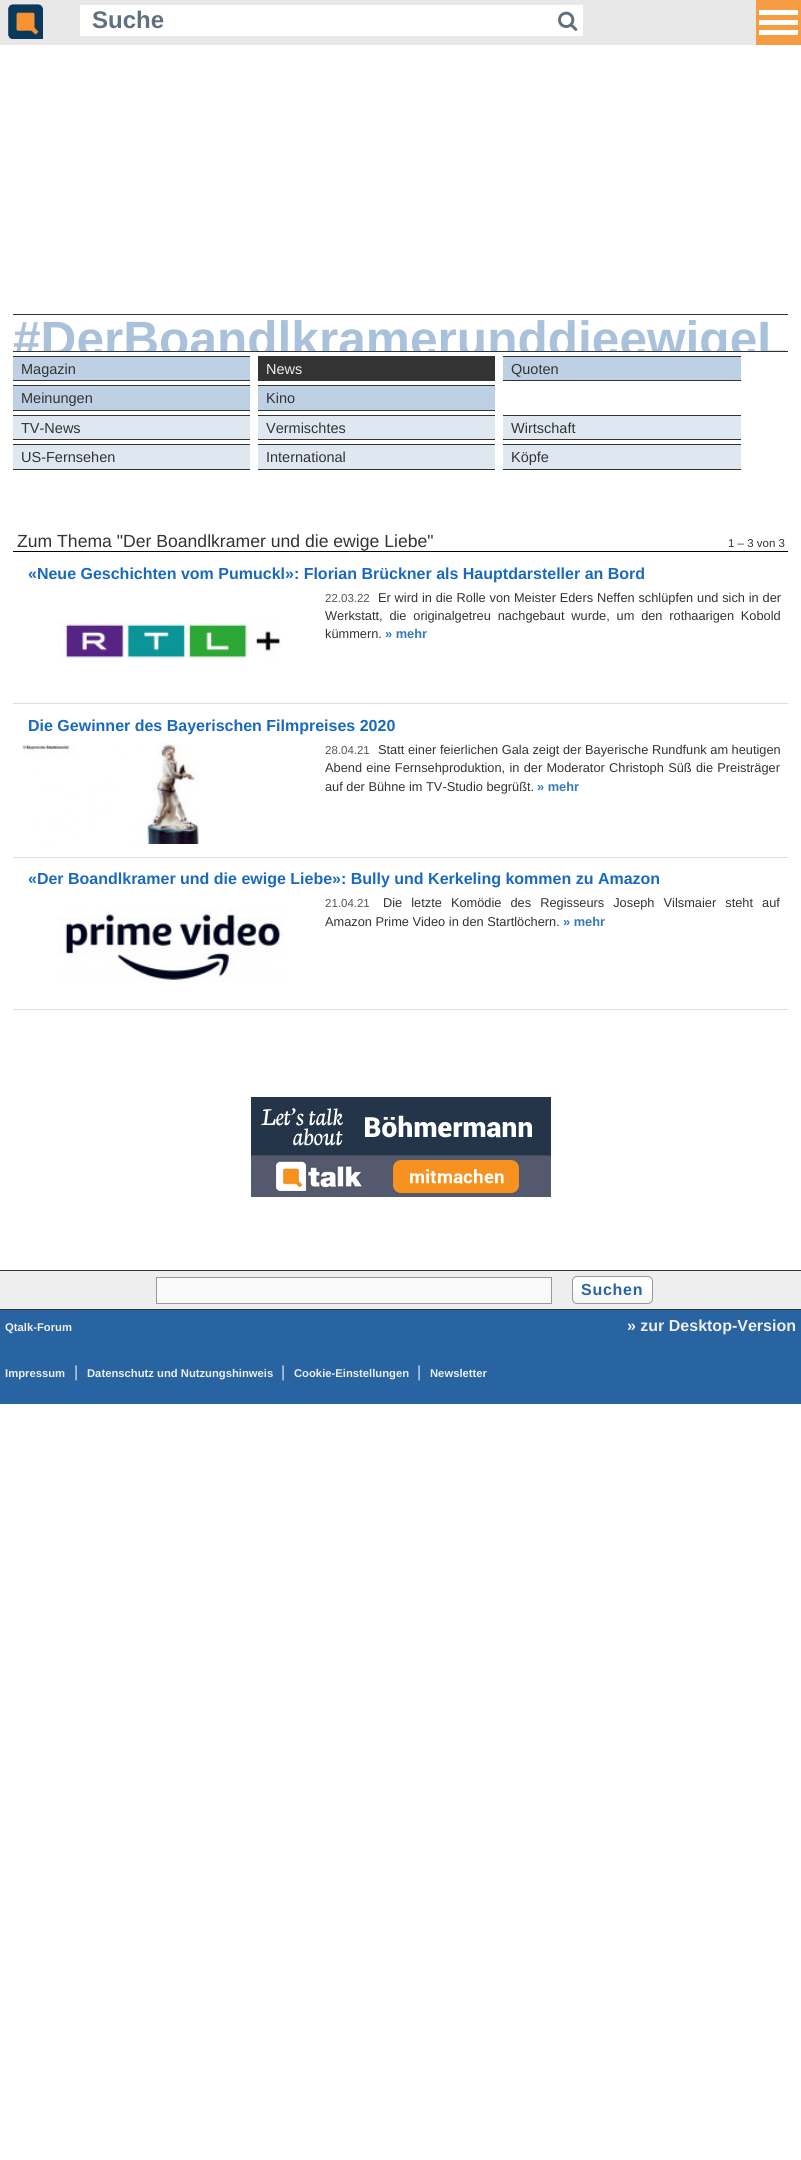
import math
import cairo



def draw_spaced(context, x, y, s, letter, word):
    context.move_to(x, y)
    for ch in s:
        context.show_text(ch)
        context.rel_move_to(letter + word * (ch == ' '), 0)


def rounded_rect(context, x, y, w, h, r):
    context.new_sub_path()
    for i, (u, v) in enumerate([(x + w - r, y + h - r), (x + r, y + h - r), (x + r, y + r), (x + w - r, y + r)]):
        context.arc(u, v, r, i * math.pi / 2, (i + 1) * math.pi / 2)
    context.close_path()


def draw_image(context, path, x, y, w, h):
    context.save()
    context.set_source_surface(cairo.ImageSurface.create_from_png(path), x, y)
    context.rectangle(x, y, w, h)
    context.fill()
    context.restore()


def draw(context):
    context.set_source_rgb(1, 1, 1)
    context.paint()
    context.set_source_rgb(232 / 255, 232 / 255, 232 / 255)
    context.rectangle(0, 0, 756, 45)
    context.fill()
    draw_image(context, "images/1.png", 8, 4, 35, 35)
    context.set_source_rgb(1, 1, 1)
    context.rectangle(80, 5, 503, 31)
    context.fill()
    draw_image(context, "images/2.png", 558, 11, 20, 20)
    context.set_source_rgb(246 / 255, 156 / 255, 67 / 255)
    context.rectangle(756, 0, 45, 45)
    context.fill()
    context.set_source_rgb(1, 1, 1)
    context.rectangle(759, 10, 39, 5)
    context.fill()
    context.rectangle(759, 20, 39, 5)
    context.fill()
    context.rectangle(759, 30, 39, 5)
    context.fill()
    context.set_source_rgb(51 / 255, 51 / 255, 51 / 255)
    context.rectangle(13, 314, 775, 1)
    context.fill()
    context.rectangle(13, 351, 775, 1)
    context.fill()
    context.set_source_rgb(190 / 255, 208 / 255, 227 / 255)
    context.rectangle(13, 357, 237, 23)
    context.fill()
    context.set_source_rgb(51 / 255, 51 / 255, 51 / 255)
    context.rectangle(13, 356, 237, 1)
    context.fill()
    context.rectangle(13, 380, 237, 1)
    context.fill()
    context.rectangle(258, 356, 237, 25)
    context.fill()
    context.set_source_rgb(190 / 255, 208 / 255, 227 / 255)
    context.rectangle(503, 357, 238, 23)
    context.fill()
    context.set_source_rgb(51 / 255, 51 / 255, 51 / 255)
    context.rectangle(503, 356, 238, 1)
    context.fill()
    context.rectangle(503, 380, 238, 1)
    context.fill()
    context.set_source_rgb(190 / 255, 208 / 255, 227 / 255)
    context.rectangle(13, 386, 237, 24)
    context.fill()
    context.set_source_rgb(51 / 255, 51 / 255, 51 / 255)
    context.rectangle(13, 385, 237, 1)
    context.fill()
    context.rectangle(13, 410, 237, 1)
    context.fill()
    context.set_source_rgb(190 / 255, 208 / 255, 227 / 255)
    context.rectangle(258, 386, 237, 24)
    context.fill()
    context.set_source_rgb(51 / 255, 51 / 255, 51 / 255)
    context.rectangle(258, 385, 237, 1)
    context.fill()
    context.rectangle(258, 410, 237, 1)
    context.fill()
    context.set_source_rgb(223 / 255, 232 / 255, 241 / 255)
    context.rectangle(13, 416, 237, 23)
    context.fill()
    context.set_source_rgb(51 / 255, 51 / 255, 51 / 255)
    context.rectangle(13, 415, 237, 1)
    context.fill()
    context.rectangle(13, 439, 237, 1)
    context.fill()
    context.set_source_rgb(223 / 255, 232 / 255, 241 / 255)
    context.rectangle(258, 416, 237, 23)
    context.fill()
    context.set_source_rgb(51 / 255, 51 / 255, 51 / 255)
    context.rectangle(258, 415, 237, 1)
    context.fill()
    context.rectangle(258, 439, 237, 1)
    context.fill()
    context.set_source_rgb(223 / 255, 232 / 255, 241 / 255)
    context.rectangle(503, 416, 238, 23)
    context.fill()
    context.set_source_rgb(51 / 255, 51 / 255, 51 / 255)
    context.rectangle(503, 415, 238, 1)
    context.fill()
    context.rectangle(503, 439, 238, 1)
    context.fill()
    context.set_source_rgb(223 / 255, 232 / 255, 241 / 255)
    context.rectangle(13, 445, 237, 24)
    context.fill()
    context.set_source_rgb(51 / 255, 51 / 255, 51 / 255)
    context.rectangle(13, 444, 237, 1)
    context.fill()
    context.rectangle(13, 469, 237, 1)
    context.fill()
    context.set_source_rgb(223 / 255, 232 / 255, 241 / 255)
    context.rectangle(258, 445, 237, 24)
    context.fill()
    context.set_source_rgb(51 / 255, 51 / 255, 51 / 255)
    context.rectangle(258, 444, 237, 1)
    context.fill()
    context.rectangle(258, 469, 237, 1)
    context.fill()
    context.set_source_rgb(223 / 255, 232 / 255, 241 / 255)
    context.rectangle(503, 445, 238, 24)
    context.fill()
    context.set_source_rgb(51 / 255, 51 / 255, 51 / 255)
    context.rectangle(503, 444, 238, 1)
    context.fill()
    context.rectangle(503, 469, 238, 1)
    context.fill()
    context.set_source_rgb(0, 0, 0)
    context.rectangle(13, 551, 775, 1)
    context.fill()
    context.set_source_rgb(221 / 255, 221 / 255, 221 / 255)
    context.rectangle(13, 703, 775, 1)
    context.fill()
    draw_image(context, "images/3.png", 58, 620, 223, 38)
    context.rectangle(13, 857, 775, 1)
    context.fill()
    draw_image(context, "images/4.png", 22, 744, 178, 100)
    context.rectangle(13, 1009, 775, 1)
    context.fill()
    draw_image(context, "images/5.png", 58, 907, 226, 75)
    draw_image(context, "images/6.png", 251, 1097, 300, 100)
    context.set_source_rgb(238 / 255, 238 / 255, 238 / 255)
    context.rectangle(0, 1271, 801, 38)
    context.fill()
    context.set_source_rgb(51 / 255, 51 / 255, 51 / 255)
    context.rectangle(0, 1270, 801, 1)
    context.fill()
    context.rectangle(0, 1309, 801, 1)
    context.fill()
    context.set_source_rgb(249 / 255, 249 / 255, 249 / 255)
    context.rectangle(156.5, 1277.5, 395, 26)
    context.fill_preserve()
    context.set_source_rgb(153 / 255, 153 / 255, 153 / 255)
    context.set_line_width(1)
    context.stroke()
    draw_image(context, "images/7.png", 572, 1276, 81, 28)
    rounded_rect(context, 572.5, 1276.5, 80, 27, 4.5)
    context.stroke()
    context.set_source_rgb(40 / 255, 100 / 255, 162 / 255)
    context.rectangle(0, 1310, 801, 94)
    context.fill()
    context.select_font_face("Liberation Sans", cairo.FontSlant.NORMAL, cairo.FontWeight.BOLD)
    context.set_font_size(24)
    context.set_source_rgb(96 / 255, 112 / 255, 128 / 255)
    context.move_to(92, 28)
    context.show_text("Suche")
    context.save()
    context.rectangle(13, 315, 775, 36)
    context.clip()
    context.set_font_size(49.6)
    context.set_source_rgb(169 / 255, 193 / 255, 218 / 255)
    context.move_to(13, 356)
    context.show_text("#DerBoandlkramerunddieewigeL")
    context.restore()
    context.select_font_face("Liberation Sans")
    context.set_font_size(14.5)
    context.set_source_rgb(51 / 255, 51 / 255, 51 / 255)
    context.move_to(21, 374)
    context.show_text("Magazin")
    context.set_source_rgb(238 / 255, 238 / 255, 238 / 255)
    context.move_to(266, 374)
    context.show_text("News")
    context.set_source_rgb(51 / 255, 51 / 255, 51 / 255)
    context.move_to(511, 374)
    context.show_text("Quoten")
    context.move_to(21, 403)
    context.show_text("Meinungen")
    context.move_to(266, 403)
    context.show_text("Kino")
    context.move_to(21, 433)
    context.show_text("TV-News")
    context.move_to(266, 433)
    context.show_text("Vermischtes")
    context.move_to(511, 433)
    context.show_text("Wirtschaft")
    context.move_to(21, 462)
    context.show_text("US-Fernsehen")
    context.move_to(266, 462)
    context.show_text("International")
    context.move_to(511, 462)
    context.show_text("Köpfe")
    context.set_font_size(17.6)
    context.move_to(17, 547)
    context.show_text("Zum Thema \"Der Boandlkramer und die ewige Liebe\"")
    context.set_font_size(11.5)
    context.move_to(728, 547)
    context.show_text("1 – 3 von 3")
    context.select_font_face("Liberation Sans", cairo.FontSlant.NORMAL, cairo.FontWeight.BOLD)
    context.set_font_size(16)
    context.set_source_rgb(25 / 255, 106 / 255, 190 / 255)
    context.move_to(28, 579)
    context.show_text("«Neue Geschichten vom Pumuckl»: Florian Brückner als Hauptdarsteller an Bord")
    context.select_font_face("Liberation Sans")
    context.set_font_size(11.5)
    context.set_source_rgb(85 / 255, 85 / 255, 85 / 255)
    context.move_to(325, 602)
    context.show_text("22.03.22")
    context.set_font_size(12.8)
    context.set_source_rgb(51 / 255, 51 / 255, 51 / 255)
    draw_spaced(context, 378, 602, "Er wird in die Rolle von Meister Eders Neffen schlüpfen und sich in der", 0, 0.25)
    draw_spaced(context, 325, 620, "Werkstatt, die originalgetreu nachgebaut wurde, um den rothaarigen Kobold", 0, 3.25)
    context.move_to(325, 638)
    context.show_text("kümmern.")
    context.select_font_face("Liberation Sans", cairo.FontSlant.NORMAL, cairo.FontWeight.BOLD)
    context.set_source_rgb(51 / 255, 122 / 255, 183 / 255)
    context.move_to(385, 638)
    context.show_text("» mehr")
    context.set_font_size(16)
    context.set_source_rgb(25 / 255, 106 / 255, 190 / 255)
    context.move_to(28, 731)
    context.show_text("Die Gewinner des Bayerischen Filmpreises 2020")
    context.select_font_face("Liberation Sans")
    context.set_font_size(11.5)
    context.set_source_rgb(85 / 255, 85 / 255, 85 / 255)
    context.move_to(325, 754)
    context.show_text("28.04.21")
    context.set_font_size(12.8)
    context.set_source_rgb(51 / 255, 51 / 255, 51 / 255)
    context.move_to(378, 754)
    context.show_text("Statt einer feierlichen Gala zeigt der Bayerische Rundfunk am heutigen")
    draw_spaced(context, 325, 772, "Abend eine Fernsehproduktion, in der Moderator Christoph Süß die Preisträger", 0, 0.75)
    context.move_to(325, 791)
    context.show_text("auf der Bühne im TV-Studio begrüßt.")
    context.select_font_face("Liberation Sans", cairo.FontSlant.NORMAL, cairo.FontWeight.BOLD)
    context.set_source_rgb(51 / 255, 122 / 255, 183 / 255)
    context.move_to(537, 791)
    context.show_text("» mehr")
    context.set_font_size(16)
    context.set_source_rgb(25 / 255, 106 / 255, 190 / 255)
    context.move_to(28, 884)
    context.show_text("«Der Boandlkramer und die ewige Liebe»: Bully und Kerkeling kommen zu Amazon")
    context.select_font_face("Liberation Sans")
    context.set_font_size(11.5)
    context.set_source_rgb(85 / 255, 85 / 255, 85 / 255)
    context.move_to(325, 907)
    context.show_text("21.04.21")
    context.set_font_size(12.8)
    context.set_source_rgb(51 / 255, 51 / 255, 51 / 255)
    draw_spaced(context, 383, 907, "Die letzte Komödie des Regisseurs Joseph Vilsmaier steht auf", 0, 5.5)
    context.move_to(325, 926)
    context.show_text("Amazon Prime Video in den Startlöchern.")
    context.select_font_face("Liberation Sans", cairo.FontSlant.NORMAL, cairo.FontWeight.BOLD)
    context.set_source_rgb(51 / 255, 122 / 255, 183 / 255)
    context.move_to(563, 926)
    context.show_text("» mehr")
    context.set_font_size(16)
    context.set_source_rgb(40 / 255, 100 / 255, 162 / 255)
    draw_spaced(context, 581, 1295, "Suchen", 0.75, 0)
    context.set_font_size(11.25)
    context.set_source_rgb(238 / 255, 238 / 255, 238 / 255)
    context.move_to(5, 1331)
    context.show_text("Qtalk-Forum")
    context.set_font_size(16)
    context.move_to(627, 1331)
    context.show_text("» zur Desktop-Version")
    context.set_font_size(11.25)
    context.move_to(5, 1377)
    context.show_text("Impressum")
    context.select_font_face("Liberation Sans")
    context.set_font_size(16)
    context.set_source_rgb(221 / 255, 221 / 255, 221 / 255)
    context.move_to(74, 1377)
    context.show_text("|")
    context.select_font_face("Liberation Sans", cairo.FontSlant.NORMAL, cairo.FontWeight.BOLD)
    context.set_font_size(11.25)
    context.set_source_rgb(238 / 255, 238 / 255, 238 / 255)
    context.move_to(87, 1377)
    context.show_text("Datenschutz und Nutzungshinweis")
    context.select_font_face("Liberation Sans")
    context.set_font_size(16)
    context.set_source_rgb(221 / 255, 221 / 255, 221 / 255)
    context.move_to(281, 1377)
    context.show_text("|")
    context.select_font_face("Liberation Sans", cairo.FontSlant.NORMAL, cairo.FontWeight.BOLD)
    context.set_font_size(11.25)
    context.set_source_rgb(238 / 255, 238 / 255, 238 / 255)
    context.move_to(294, 1377)
    context.show_text("Cookie-Einstellungen")
    context.select_font_face("Liberation Sans")
    context.set_font_size(16)
    context.set_source_rgb(221 / 255, 221 / 255, 221 / 255)
    context.move_to(417, 1377)
    context.show_text("|")
    context.select_font_face("Liberation Sans", cairo.FontSlant.NORMAL, cairo.FontWeight.BOLD)
    context.set_font_size(11.25)
    context.set_source_rgb(238 / 255, 238 / 255, 238 / 255)
    context.move_to(430, 1377)
    context.show_text("Newsletter")


surface = cairo.ImageSurface(cairo.Format.RGB24, 801, 2160)
context = cairo.Context(surface)
options = cairo.FontOptions()
options.set_hint_metrics(cairo.HintMetrics.OFF)
options.set_hint_style(cairo.HintStyle.NONE)
context.set_font_options(options)
context.set_miter_limit(4)
draw(context)
surface.write_to_png("out.png")
